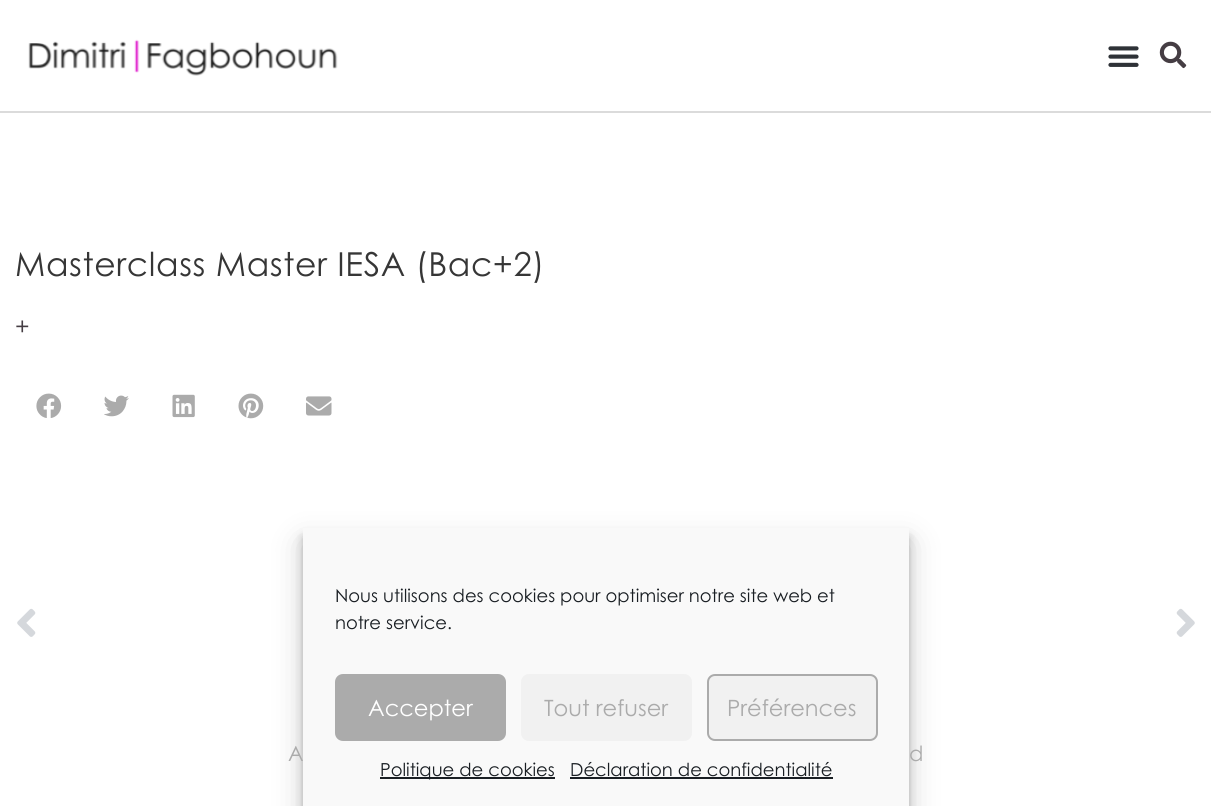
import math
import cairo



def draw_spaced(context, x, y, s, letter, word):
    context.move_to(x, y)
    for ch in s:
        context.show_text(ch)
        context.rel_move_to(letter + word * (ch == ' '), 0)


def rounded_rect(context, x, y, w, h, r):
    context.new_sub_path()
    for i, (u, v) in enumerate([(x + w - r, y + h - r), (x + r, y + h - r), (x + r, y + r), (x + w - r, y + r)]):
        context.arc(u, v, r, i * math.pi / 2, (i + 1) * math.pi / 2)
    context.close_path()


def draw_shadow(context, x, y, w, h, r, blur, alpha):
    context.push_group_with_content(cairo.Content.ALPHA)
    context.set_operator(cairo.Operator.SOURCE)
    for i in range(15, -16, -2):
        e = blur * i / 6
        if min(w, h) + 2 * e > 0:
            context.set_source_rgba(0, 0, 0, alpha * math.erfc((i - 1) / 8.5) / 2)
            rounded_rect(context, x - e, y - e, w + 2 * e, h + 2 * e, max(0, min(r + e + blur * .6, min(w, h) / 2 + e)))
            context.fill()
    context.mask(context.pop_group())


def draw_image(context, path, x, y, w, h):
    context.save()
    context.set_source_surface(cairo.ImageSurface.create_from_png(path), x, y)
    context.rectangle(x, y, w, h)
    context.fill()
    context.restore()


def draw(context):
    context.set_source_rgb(1, 1, 1)
    context.paint()
    context.set_source_rgb(219 / 255, 219 / 255, 219 / 255)
    context.rectangle(0, 111, 1211, 2)
    context.fill()
    draw_image(context, "images/1.png", 28, 39, 310, 37)
    draw_image(context, "images/2.png", 1108, 46, 31, 21)
    draw_image(context, "images/3.png", 1159, 41, 28, 28)
    draw_image(context, "images/4.png", 36, 393, 26, 25)
    draw_image(context, "images/5.png", 104, 395, 25, 22)
    draw_image(context, "images/6.png", 172, 394, 23, 24)
    draw_image(context, "images/7.png", 238, 393, 26, 26)
    draw_image(context, "images/8.png", 306, 396, 26, 20)
    draw_image(context, "images/9.png", 17, 608, 19, 29)
    draw_image(context, "images/10.png", 1176, 608, 19, 29)
    context.set_source_rgb(0, 0, 0)
    draw_shadow(context, 303, 537, 606, 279, 0, 4.5, 0.23)
    draw_shadow(context, 303, 543, 606, 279, 0, 15, 0.19)
    context.select_font_face("Century Gothic")
    context.set_font_size(33)
    context.set_source_rgb(54 / 255, 54 / 255, 54 / 255)
    draw_spaced(context, 15, 276, "Masterclass Master IESA (Bac+2)", 0.6, 0)
    context.set_font_size(24)
    context.set_source_rgb(69 / 255, 61 / 255, 67 / 255)
    context.move_to(15, 335)
    context.show_text("+")
    context.set_font_size(21)
    context.set_source_rgb(171 / 255, 171 / 255, 171 / 255)
    context.move_to(288, 761)
    context.show_text("A")
    context.set_source_rgb(249 / 255, 249 / 255, 249 / 255)
    context.rectangle(303, 528, 606, 278)
    context.fill()
    context.set_font_size(18)
    context.set_source_rgb(25 / 255, 30 / 255, 35 / 255)
    context.move_to(335, 629)
    context.show_text("notre service.")
    context.move_to(335, 602)
    context.show_text("Nous utilisons des cookies pour optimiser notre site web et")
    context.move_to(570, 776)
    context.show_text("Déclaration de confidentialité")
    context.rectangle(570, 777, 263, 2)
    context.fill()
    context.rectangle(380, 777, 175, 2)
    context.fill()
    context.move_to(380, 776)
    context.show_text("Politique de cookies")
    context.set_source_rgb(241 / 255, 241 / 255, 241 / 255)
    rounded_rect(context, 708, 675, 169, 65, 7)
    context.fill_preserve()
    context.set_source_rgb(171 / 255, 171 / 255, 171 / 255)
    context.stroke()
    context.set_font_size(22.5)
    context.move_to(727, 716)
    context.show_text("Préférences")
    context.set_source_rgb(241 / 255, 241 / 255, 241 / 255)
    rounded_rect(context, 521, 674, 171, 67, 8)
    context.fill()
    context.set_source_rgb(171 / 255, 171 / 255, 171 / 255)
    context.move_to(544, 716)
    context.show_text("Tout refuser")
    rounded_rect(context, 336, 675, 169, 65, 7)
    context.fill_preserve()
    context.stroke()
    context.set_source_rgb(1, 1, 1)
    context.move_to(368, 716)
    context.show_text("Accepter")
    context.set_font_size(21)
    context.set_source_rgb(171 / 255, 171 / 255, 171 / 255)
    context.move_to(909, 761)
    context.show_text("d")


surface = cairo.ImageSurface(cairo.Format.RGB24, 1211, 806)
context = cairo.Context(surface)
options = cairo.FontOptions()
options.set_hint_metrics(cairo.HintMetrics.OFF)
options.set_hint_style(cairo.HintStyle.NONE)
context.set_font_options(options)
context.set_miter_limit(4)
draw(context)
surface.write_to_png("out.png")
